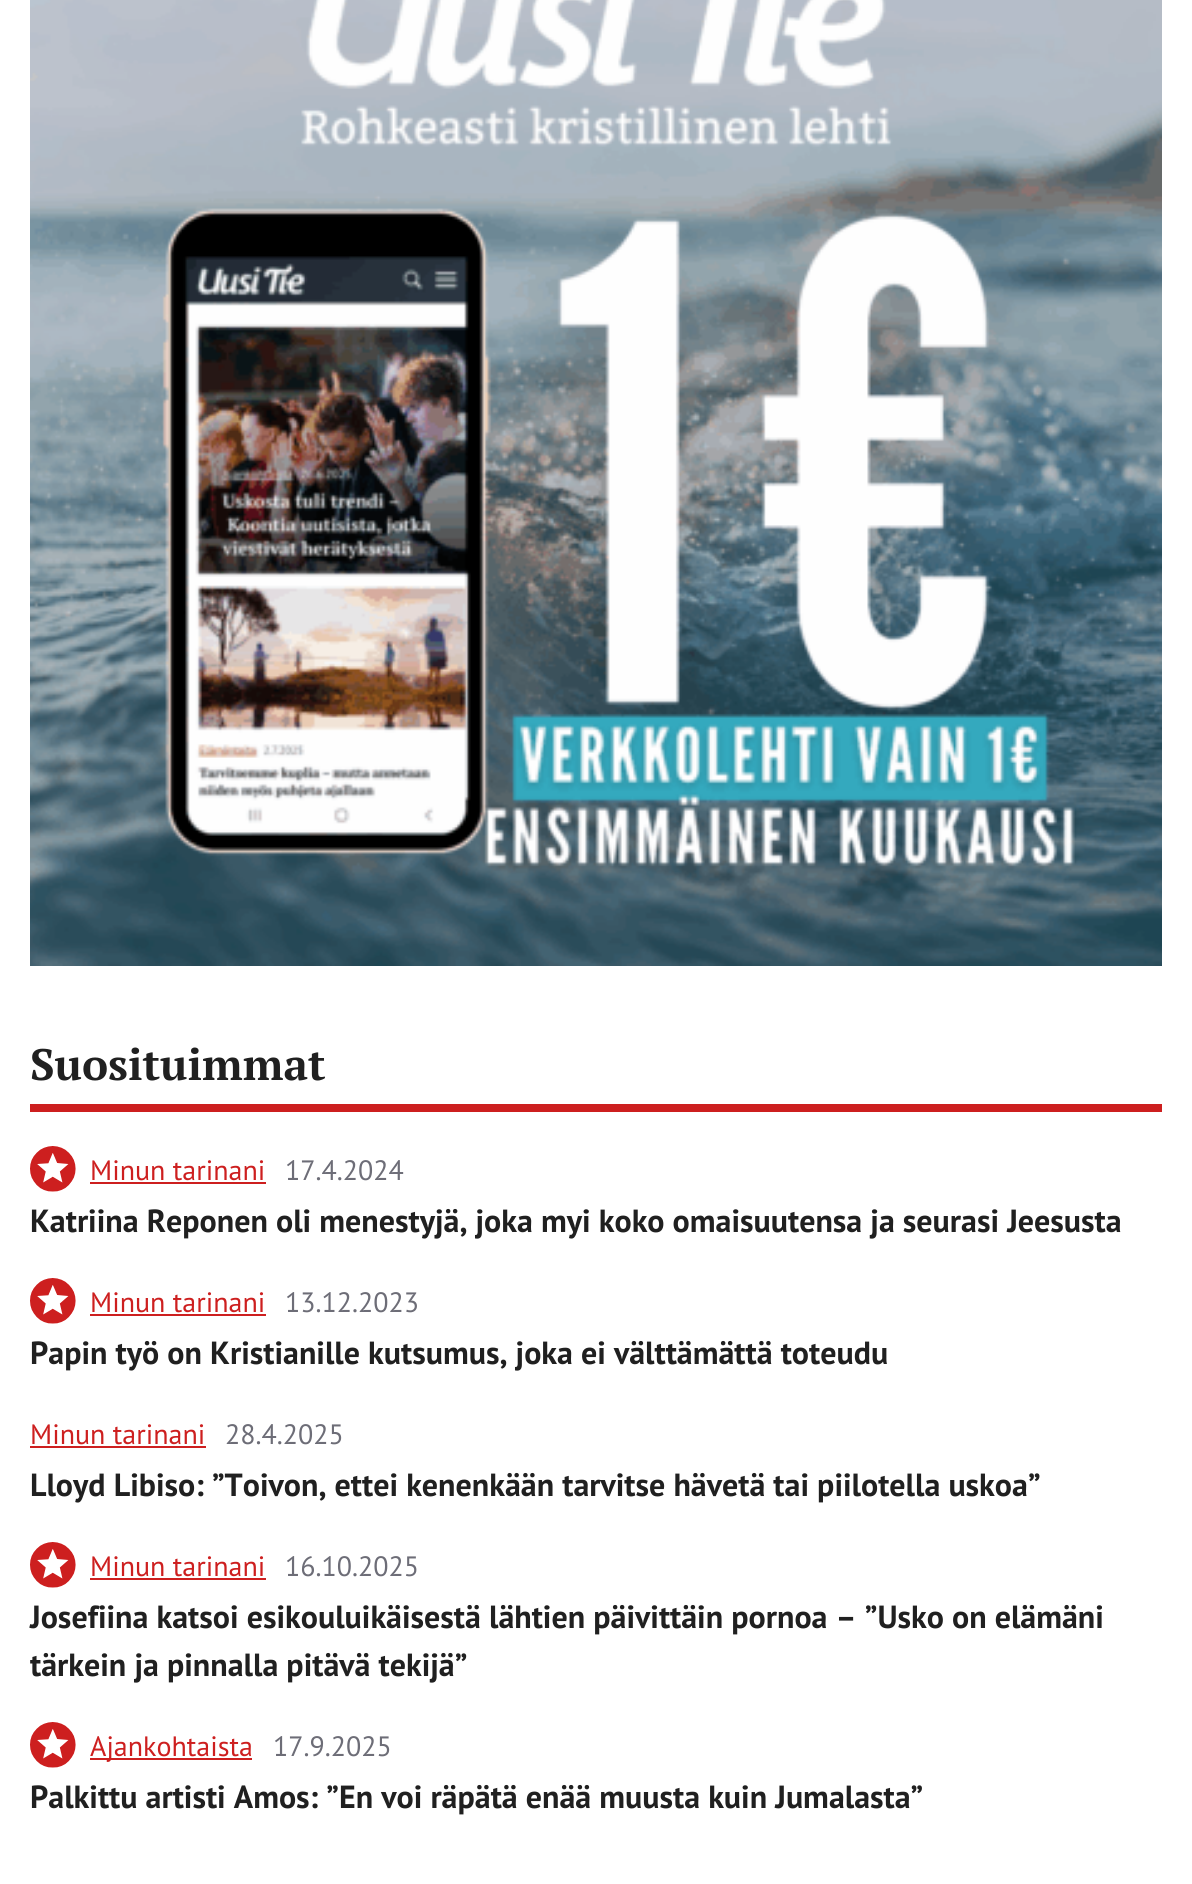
import math
import cairo



def draw_image(context, path, x, y, w, h):
    context.save()
    context.set_source_surface(cairo.ImageSurface.create_from_png(path), x, y)
    context.rectangle(x, y, w, h)
    context.fill()
    context.restore()


def draw(context):
    context.set_source_rgb(1, 1, 1)
    context.paint()
    draw_image(context, "images/1.png", 30, 0, 1132, 966)
    context.set_source_rgb(205 / 255, 31 / 255, 31 / 255)
    context.rectangle(30, 1104, 1132, 8)
    context.fill()
    draw_image(context, "images/2.png", 30, 1146, 46, 46)
    context.rectangle(90, 1182, 176, 2)
    context.fill()
    draw_image(context, "images/2.png", 30, 1278, 46, 46)
    context.rectangle(90, 1314, 176, 2)
    context.fill()
    context.rectangle(30, 1446, 176, 2)
    context.fill()
    draw_image(context, "images/2.png", 30, 1542, 46, 46)
    context.rectangle(90, 1578, 176, 2)
    context.fill()
    draw_image(context, "images/2.png", 30, 1722, 46, 46)
    context.rectangle(90, 1758, 162, 2)
    context.fill()
    context.select_font_face("PT Serif", cairo.FontSlant.NORMAL, cairo.FontWeight.BOLD)
    context.set_font_size(44)
    context.set_source_rgb(32 / 255, 32 / 255, 32 / 255)
    context.move_to(30, 1080)
    context.show_text("Suosituimmat")
    context.select_font_face("PT Sans")
    context.set_font_size(28)
    context.set_source_rgb(205 / 255, 31 / 255, 31 / 255)
    context.move_to(90, 1180)
    context.show_text("Minun tarinani")
    context.set_source_rgb(109 / 255, 109 / 255, 119 / 255)
    context.move_to(285, 1180)
    context.show_text("17.4.2024")
    context.select_font_face("PT Sans", cairo.FontSlant.NORMAL, cairo.FontWeight.BOLD)
    context.set_font_size(32)
    context.set_source_rgb(32 / 255, 32 / 255, 32 / 255)
    context.move_to(30, 1232)
    context.show_text("Katriina Reponen oli menestyjä, joka myi koko omaisuutensa ja seurasi Jeesusta")
    context.select_font_face("PT Sans")
    context.set_font_size(28)
    context.set_source_rgb(205 / 255, 31 / 255, 31 / 255)
    context.move_to(90, 1312)
    context.show_text("Minun tarinani")
    context.set_source_rgb(109 / 255, 109 / 255, 119 / 255)
    context.move_to(285, 1312)
    context.show_text("13.12.2023")
    context.select_font_face("PT Sans", cairo.FontSlant.NORMAL, cairo.FontWeight.BOLD)
    context.set_font_size(32)
    context.set_source_rgb(32 / 255, 32 / 255, 32 / 255)
    context.move_to(30, 1364)
    context.show_text("Papin työ on Kristianille kutsumus, joka ei välttämättä toteudu")
    context.select_font_face("PT Sans")
    context.set_font_size(28)
    context.set_source_rgb(205 / 255, 31 / 255, 31 / 255)
    context.move_to(30, 1444)
    context.show_text("Minun tarinani")
    context.set_source_rgb(109 / 255, 109 / 255, 119 / 255)
    context.move_to(225, 1444)
    context.show_text("28.4.2025")
    context.select_font_face("PT Sans", cairo.FontSlant.NORMAL, cairo.FontWeight.BOLD)
    context.set_font_size(32)
    context.set_source_rgb(32 / 255, 32 / 255, 32 / 255)
    context.move_to(30, 1496)
    context.show_text("Lloyd Libiso: ”Toivon, ettei kenenkään tarvitse hävetä tai piilotella uskoa”")
    context.select_font_face("PT Sans")
    context.set_font_size(28)
    context.set_source_rgb(205 / 255, 31 / 255, 31 / 255)
    context.move_to(90, 1576)
    context.show_text("Minun tarinani")
    context.set_source_rgb(109 / 255, 109 / 255, 119 / 255)
    context.move_to(285, 1576)
    context.show_text("16.10.2025")
    context.select_font_face("PT Sans", cairo.FontSlant.NORMAL, cairo.FontWeight.BOLD)
    context.set_font_size(32)
    context.set_source_rgb(32 / 255, 32 / 255, 32 / 255)
    context.move_to(30, 1628)
    context.show_text("Josefiina katsoi esikouluikäisestä lähtien päivittäin pornoa – ”Usko on elämäni")
    context.move_to(30, 1676)
    context.show_text("tärkein ja pinnalla pitävä tekijä”")
    context.select_font_face("PT Sans")
    context.set_font_size(28)
    context.set_source_rgb(205 / 255, 31 / 255, 31 / 255)
    context.move_to(90, 1756)
    context.show_text("Ajankohtaista")
    context.set_source_rgb(109 / 255, 109 / 255, 119 / 255)
    context.move_to(273, 1756)
    context.show_text("17.9.2025")
    context.select_font_face("PT Sans", cairo.FontSlant.NORMAL, cairo.FontWeight.BOLD)
    context.set_font_size(32)
    context.set_source_rgb(32 / 255, 32 / 255, 32 / 255)
    context.move_to(30, 1808)
    context.show_text("Palkittu artisti Amos: ”En voi räpätä enää muusta kuin Jumalasta”")


surface = cairo.ImageSurface(cairo.Format.RGB24, 1192, 1884)
context = cairo.Context(surface)
options = cairo.FontOptions()
options.set_hint_metrics(cairo.HintMetrics.OFF)
options.set_hint_style(cairo.HintStyle.NONE)
context.set_font_options(options)
context.set_miter_limit(4)
draw(context)
surface.write_to_png("out.png")
